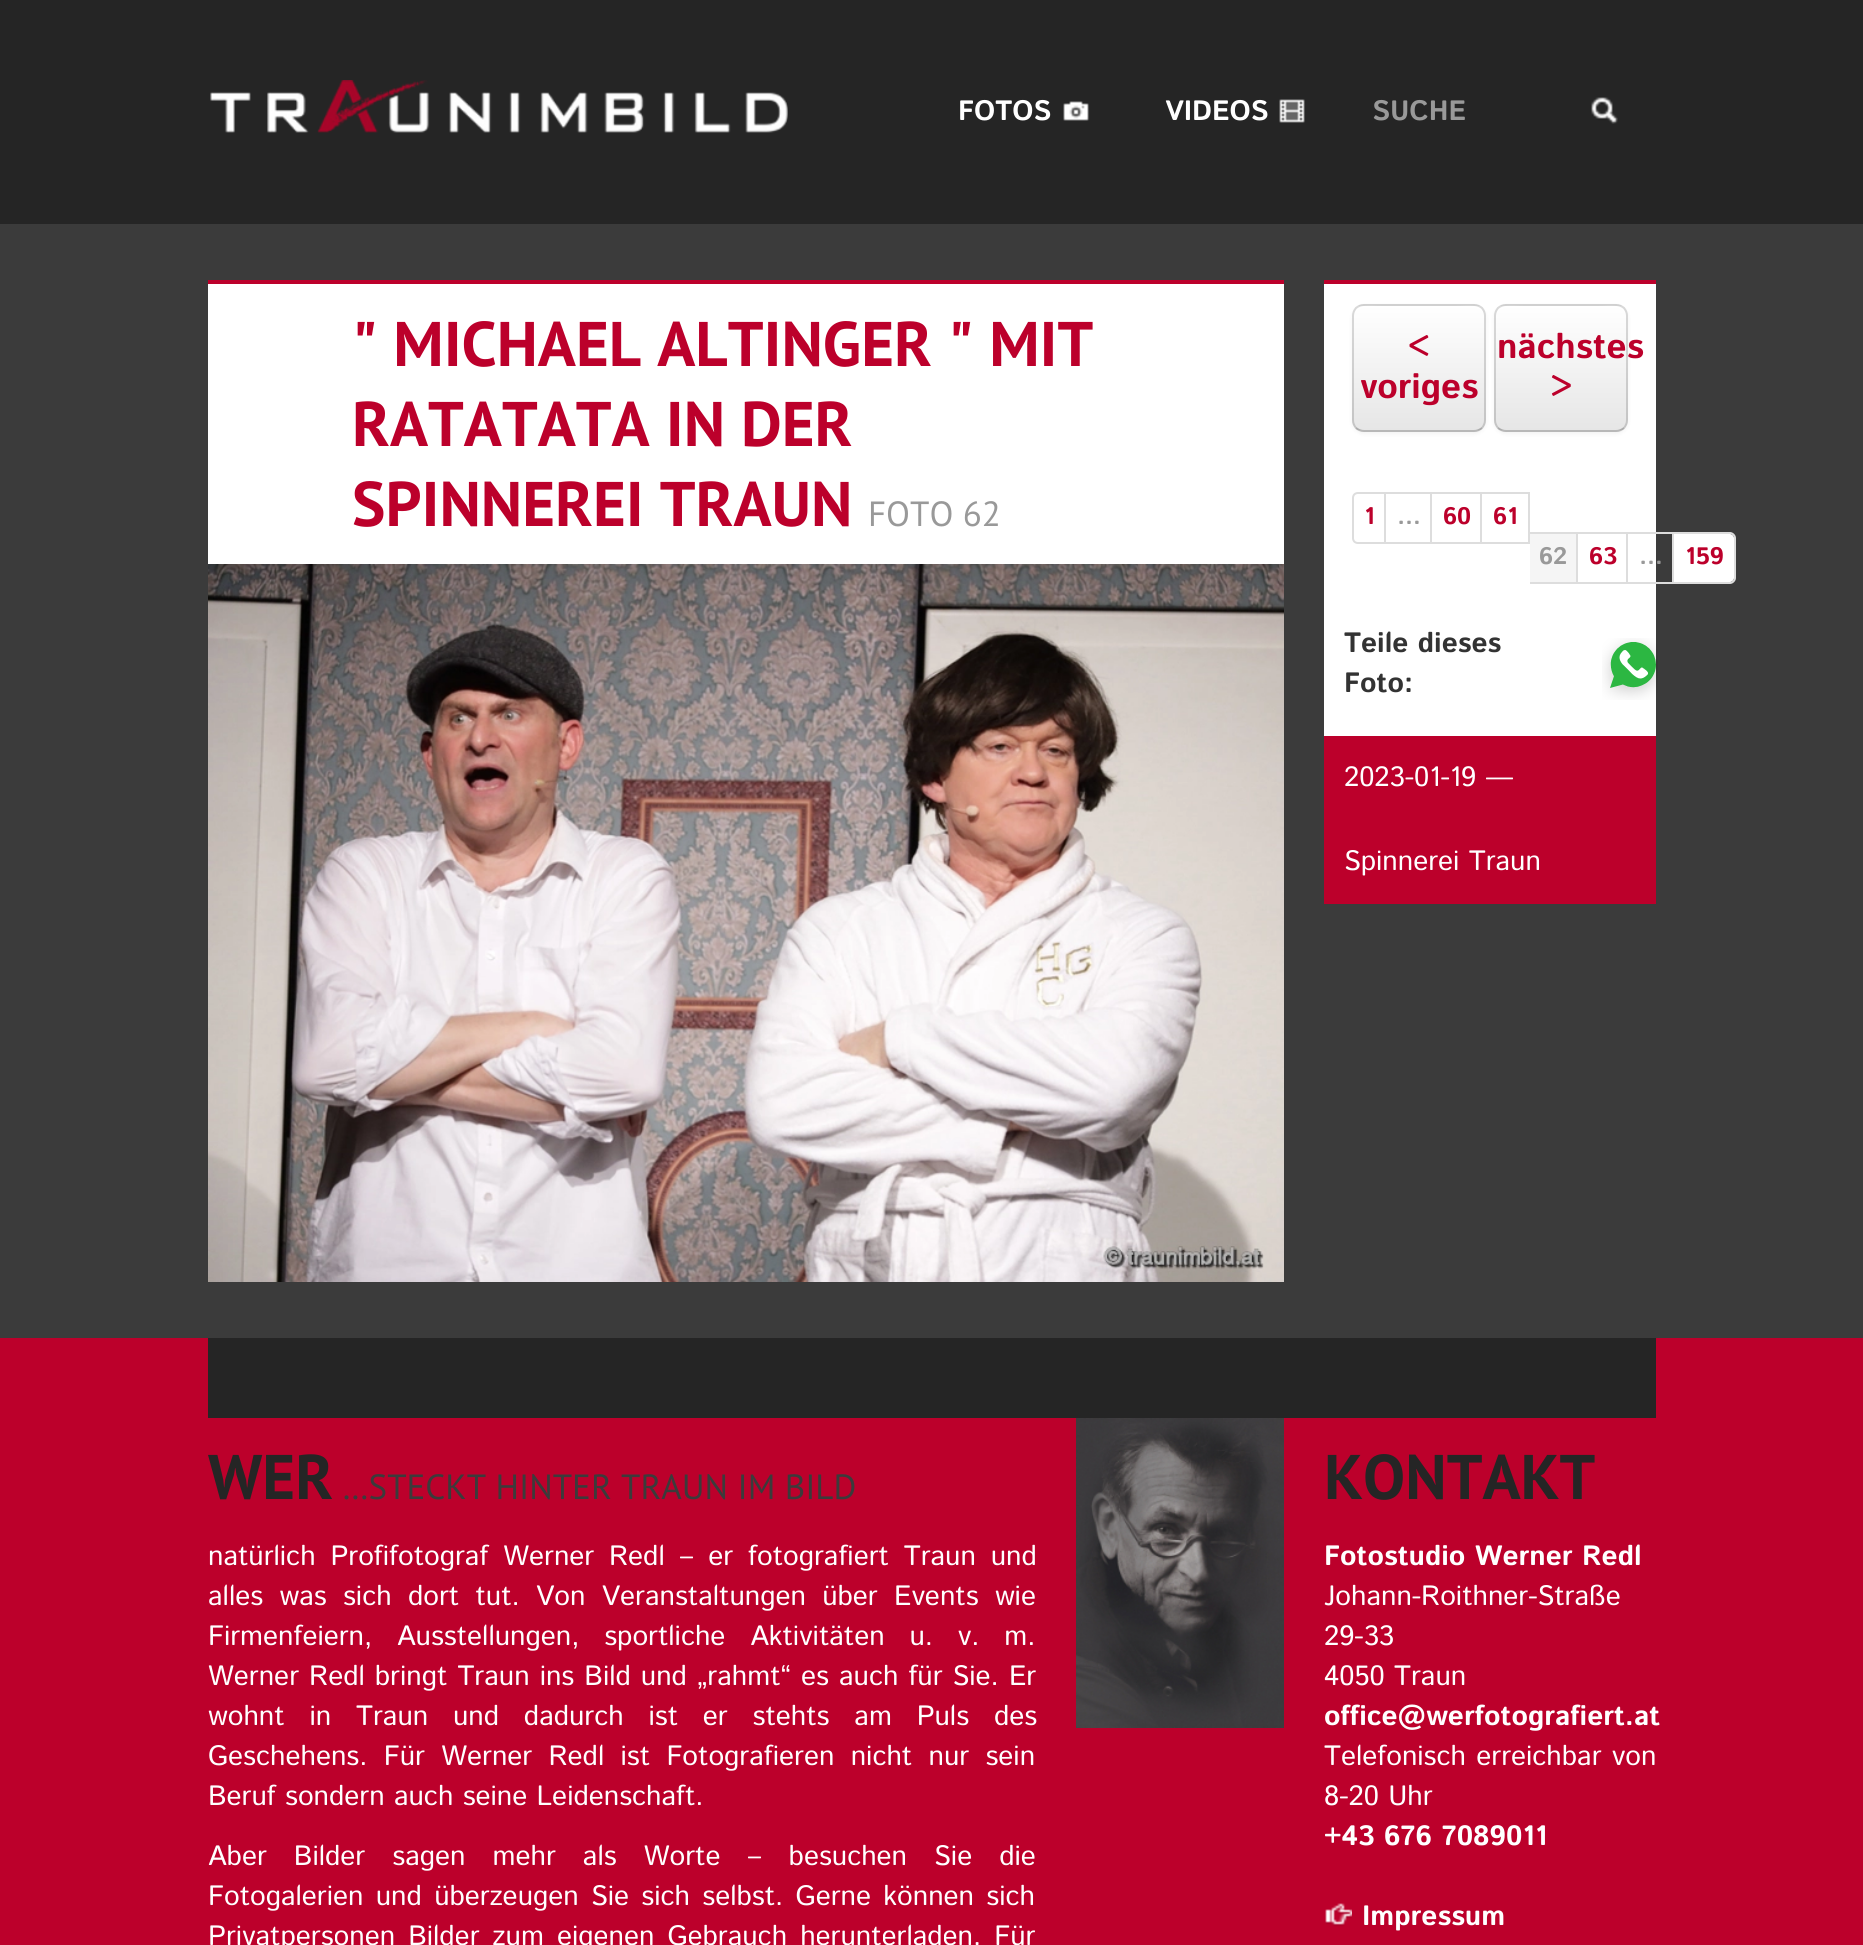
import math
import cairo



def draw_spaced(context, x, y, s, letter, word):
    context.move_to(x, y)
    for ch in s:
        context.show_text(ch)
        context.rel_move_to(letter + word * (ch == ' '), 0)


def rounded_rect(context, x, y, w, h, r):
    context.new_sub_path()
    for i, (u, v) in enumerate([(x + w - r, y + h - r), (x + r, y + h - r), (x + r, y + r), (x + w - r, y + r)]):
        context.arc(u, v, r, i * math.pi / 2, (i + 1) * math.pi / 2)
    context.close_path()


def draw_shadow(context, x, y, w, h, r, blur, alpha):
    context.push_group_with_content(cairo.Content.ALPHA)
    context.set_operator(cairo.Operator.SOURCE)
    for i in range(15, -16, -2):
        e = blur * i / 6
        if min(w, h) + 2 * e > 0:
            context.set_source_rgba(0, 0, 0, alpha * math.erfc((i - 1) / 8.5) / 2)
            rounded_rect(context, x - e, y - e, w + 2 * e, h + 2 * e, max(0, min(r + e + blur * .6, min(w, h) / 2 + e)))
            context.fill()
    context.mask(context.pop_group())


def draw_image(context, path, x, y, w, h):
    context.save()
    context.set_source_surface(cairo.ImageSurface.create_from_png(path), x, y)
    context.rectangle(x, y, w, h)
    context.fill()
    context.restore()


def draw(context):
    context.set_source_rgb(37 / 255, 37 / 255, 37 / 255)
    context.paint()
    draw_image(context, "images/1.png", 210, 80, 578, 53)
    draw_image(context, "images/2.png", 1063, 101, 26, 20)
    draw_image(context, "images/3.png", 1279, 99, 26, 24)
    draw_image(context, "images/4.png", 1591, 97, 27, 27)
    context.set_source_rgb(59 / 255, 59 / 255, 59 / 255)
    context.rectangle(0, 224, 1863, 1114)
    context.fill()
    context.set_source_rgb(1, 1, 1)
    context.rectangle(208, 284, 1076, 280)
    context.fill()
    context.set_source_rgb(188 / 255, 0, 43 / 255)
    context.rectangle(208, 280, 1076, 4)
    context.fill()
    draw_image(context, "images/5.png", 208, 564, 1076, 718)
    context.set_source_rgb(1, 1, 1)
    context.rectangle(1324, 284, 332, 452)
    context.fill()
    context.set_source_rgb(188 / 255, 0, 43 / 255)
    context.rectangle(1324, 280, 332, 4)
    context.fill()
    context.set_source_rgb(0, 0, 0)
    draw_shadow(context, 1352, 306, 134, 128, 12, 2, 0.05)
    context.set_source_rgb(245 / 255, 245 / 255, 245 / 255)
    rounded_rect(context, 1352, 304, 134, 128, 12)
    context.fill()
    context.save()
    rounded_rect(context, 1352, 304, 134, 128, 12)
    context.clip()
    gradient = cairo.LinearGradient(1419, 306, 1419, 430)
    gradient.add_color_stop_rgba(0, 1, 1, 1, 1)
    gradient.add_color_stop_rgba(1, 230 / 255, 230 / 255, 230 / 255, 1)
    context.set_source(gradient)
    context.rectangle(1352, 306, 134, 124)
    context.fill()
    context.restore()
    context.set_source_rgb(1, 1, 1)
    context.new_path()
    context.move_to(1364, 308)
    context.line_to(1474, 308)
    context.curve_to(1480, 308, 1484, 312, 1484, 318)
    context.curve_to(1484, 302, 1468, 306, 1456, 306)
    context.line_to(1382, 306)
    context.curve_to(1370, 306, 1354, 302, 1354, 318)
    context.curve_to(1354, 312, 1358, 308, 1364, 308)
    context.close_path()
    context.fill()
    context.new_path()
    context.move_to(1482, 428)
    context.curve_to(1479.5, 430, 1477, 431, 1474, 431)
    context.line_to(1364, 431)
    context.curve_to(1361, 431, 1358.5, 430, 1356, 428)
    context.set_source_rgba(0, 0, 0, 0.25)
    context.stroke()
    context.new_path()
    context.move_to(1356, 428)
    context.curve_to(1354, 425.5, 1353, 423, 1353, 420)
    context.line_to(1353, 316)
    context.curve_to(1353, 313, 1354, 310.5, 1356, 308)
    context.curve_to(1358.5, 306, 1361, 305, 1364, 305)
    context.line_to(1474, 305)
    context.curve_to(1477, 305, 1479.5, 306, 1482, 308)
    context.curve_to(1484, 310.5, 1485, 313, 1485, 316)
    context.line_to(1485, 420)
    context.curve_to(1485, 423, 1484, 425.5, 1482, 428)
    context.set_source_rgba(0, 0, 0, 0.15)
    context.stroke()
    context.set_source_rgb(0, 0, 0)
    draw_shadow(context, 1494, 306, 134, 128, 12, 2, 0.05)
    context.set_source_rgb(245 / 255, 245 / 255, 245 / 255)
    rounded_rect(context, 1494, 304, 134, 128, 12)
    context.fill()
    context.save()
    rounded_rect(context, 1494, 304, 134, 128, 12)
    context.clip()
    gradient = cairo.LinearGradient(1561, 306, 1561, 430)
    gradient.add_color_stop_rgba(0, 1, 1, 1, 1)
    gradient.add_color_stop_rgba(1, 230 / 255, 230 / 255, 230 / 255, 1)
    context.set_source(gradient)
    context.rectangle(1494, 306, 134, 124)
    context.fill()
    context.restore()
    context.set_source_rgb(1, 1, 1)
    context.new_path()
    context.move_to(1506, 308)
    context.line_to(1616, 308)
    context.curve_to(1622, 308, 1626, 312, 1626, 318)
    context.curve_to(1626, 302, 1610, 306, 1598, 306)
    context.line_to(1524, 306)
    context.curve_to(1512, 306, 1496, 302, 1496, 318)
    context.curve_to(1496, 312, 1500, 308, 1506, 308)
    context.close_path()
    context.fill()
    context.new_path()
    context.move_to(1624, 428)
    context.curve_to(1621.5, 430, 1619, 431, 1616, 431)
    context.line_to(1506, 431)
    context.curve_to(1503, 431, 1500.5, 430, 1498, 428)
    context.set_source_rgba(0, 0, 0, 0.25)
    context.stroke()
    context.new_path()
    context.move_to(1498, 428)
    context.curve_to(1496, 425.5, 1495, 423, 1495, 420)
    context.line_to(1495, 316)
    context.curve_to(1495, 313, 1496, 310.5, 1498, 308)
    context.curve_to(1500.5, 306, 1503, 305, 1506, 305)
    context.line_to(1616, 305)
    context.curve_to(1619, 305, 1621.5, 306, 1624, 308)
    context.curve_to(1626, 310.5, 1627, 313, 1627, 316)
    context.line_to(1627, 420)
    context.curve_to(1627, 423, 1626, 425.5, 1624, 428)
    context.set_source_rgba(0, 0, 0, 0.15)
    context.stroke()
    context.new_path()
    context.move_to(1358, 493)
    context.line_to(1385, 493)
    context.line_to(1385, 543)
    context.line_to(1358, 543)
    context.curve_to(1355, 543, 1353, 541, 1353, 538)
    context.line_to(1353, 498)
    context.curve_to(1353, 495, 1355, 493, 1358, 493)
    context.close_path()
    context.set_source_rgb(221 / 255, 221 / 255, 221 / 255)
    context.stroke()
    context.rectangle(1386, 492, 144, 2)
    context.fill()
    context.rectangle(1430, 492, 2, 52)
    context.fill()
    context.rectangle(1386, 542, 46, 2)
    context.fill()
    context.rectangle(1480, 492, 2, 52)
    context.fill()
    context.rectangle(1432, 542, 50, 2)
    context.fill()
    context.rectangle(1528, 492, 2, 52)
    context.fill()
    context.rectangle(1482, 542, 48, 2)
    context.fill()
    context.set_source_rgb(245 / 255, 245 / 255, 245 / 255)
    context.rectangle(1530, 534, 46, 48)
    context.fill()
    context.set_source_rgb(221 / 255, 221 / 255, 221 / 255)
    context.rectangle(1530, 532, 144, 2)
    context.fill()
    context.rectangle(1576, 532, 2, 52)
    context.fill()
    context.rectangle(1530, 582, 48, 2)
    context.fill()
    context.rectangle(1626, 532, 2, 52)
    context.fill()
    context.rectangle(1578, 582, 50, 2)
    context.fill()
    context.rectangle(1672, 532, 2, 52)
    context.fill()
    context.rectangle(1628, 582, 46, 2)
    context.fill()
    context.set_source_rgb(1, 1, 1)
    context.new_path()
    context.move_to(1674, 534)
    context.line_to(1730, 534)
    context.curve_to(1732, 534, 1734, 536, 1734, 538)
    context.line_to(1734, 578)
    context.curve_to(1734, 580, 1732, 582, 1730, 582)
    context.line_to(1674, 582)
    context.close_path()
    context.fill()
    context.set_source_rgb(221 / 255, 221 / 255, 221 / 255)
    context.set_fill_rule(cairo.FillRule.EVEN_ODD)
    context.new_path()
    context.move_to(1674, 532)
    context.line_to(1730, 532)
    context.curve_to(1733, 532, 1736, 535, 1736, 538)
    context.line_to(1736, 578)
    context.curve_to(1736, 581, 1733, 584, 1730, 584)
    context.line_to(1674, 584)
    context.close_path()
    context.move_to(1674, 534)
    context.line_to(1730, 534)
    context.curve_to(1732, 534, 1734, 536, 1734, 538)
    context.line_to(1734, 578)
    context.curve_to(1734, 580, 1732, 582, 1730, 582)
    context.line_to(1674, 582)
    context.close_path()
    context.fill()
    draw_image(context, "images/6.png", 1602, 638, 56, 62)
    context.set_source_rgb(188 / 255, 0, 43 / 255)
    context.rectangle(1324, 736, 332, 168)
    context.fill()
    context.rectangle(0, 1338, 1863, 607)
    context.fill()
    context.set_source_rgb(37 / 255, 37 / 255, 37 / 255)
    context.rectangle(208, 1338, 1448, 80)
    context.fill()
    draw_image(context, "images/7.png", 1076, 1418, 208, 310)
    draw_image(context, "images/8.png", 1325, 1903, 27, 24)
    context.select_font_face("Istok Web", cairo.FontSlant.NORMAL, cairo.FontWeight.BOLD)
    context.set_font_size(28)
    context.set_source_rgb(1, 1, 1)
    context.move_to(958, 120)
    context.show_text("FOTOS")
    context.move_to(1165, 120)
    context.show_text("VIDEOS")
    context.set_source_rgb(153 / 255, 153 / 255, 153 / 255)
    context.move_to(1372, 120)
    context.show_text("SUCHE")
    context.select_font_face("PT Sans", cairo.FontSlant.NORMAL, cairo.FontWeight.BOLD)
    context.set_font_size(63)
    context.set_source_rgb(188 / 255, 0, 43 / 255)
    context.move_to(352, 366)
    context.show_text("\" MICHAEL ALTINGER \" MIT")
    context.move_to(352, 446)
    context.show_text("RATATATA IN DER")
    context.move_to(352, 526)
    context.show_text("SPINNEREI TRAUN")
    context.select_font_face("PT Sans")
    context.set_font_size(35)
    context.set_source_rgb(153 / 255, 153 / 255, 153 / 255)
    context.move_to(868, 526)
    context.show_text("FOTO 62")
    context.select_font_face("Istok Web", cairo.FontSlant.NORMAL, cairo.FontWeight.BOLD)
    context.set_source_rgb(188 / 255, 0, 43 / 255)
    context.move_to(1408, 358)
    context.show_text("<")
    context.move_to(1360, 398)
    context.show_text("voriges")
    context.move_to(1497, 358)
    context.show_text("nächstes")
    context.move_to(1550, 398)
    context.show_text(">")
    context.set_font_size(24)
    context.move_to(1364, 524)
    context.show_text("1")
    context.set_source_rgb(153 / 255, 153 / 255, 153 / 255)
    context.move_to(1397, 524)
    context.show_text("…")
    context.set_source_rgb(188 / 255, 0, 43 / 255)
    context.move_to(1443, 524)
    context.show_text("60")
    context.move_to(1493, 524)
    context.show_text("61")
    context.set_source_rgb(153 / 255, 153 / 255, 153 / 255)
    context.move_to(1539, 564)
    context.show_text("62")
    context.set_source_rgb(188 / 255, 0, 43 / 255)
    context.move_to(1589, 564)
    context.show_text("63")
    context.set_source_rgb(153 / 255, 153 / 255, 153 / 255)
    context.move_to(1639, 564)
    context.show_text("…")
    context.set_source_rgb(188 / 255, 0, 43 / 255)
    context.move_to(1685, 564)
    context.show_text("159")
    context.set_font_size(28)
    context.set_source_rgb(51 / 255, 51 / 255, 51 / 255)
    context.move_to(1344, 652)
    context.show_text("Teile dieses")
    context.move_to(1344, 692)
    context.show_text("Foto:")
    context.select_font_face("Istok Web")
    context.set_source_rgb(1, 1, 1)
    context.move_to(1344, 786)
    context.show_text("2023-01-19 —")
    context.move_to(1344, 870)
    context.show_text("Spinnerei Traun")
    context.select_font_face("PT Sans", cairo.FontSlant.NORMAL, cairo.FontWeight.BOLD)
    context.set_font_size(63)
    context.set_source_rgb(37 / 255, 37 / 255, 37 / 255)
    context.move_to(208, 1499)
    context.show_text("WER")
    context.select_font_face("PT Sans")
    context.set_font_size(35)
    context.set_source_rgb(59 / 255, 59 / 255, 59 / 255)
    context.move_to(342, 1499)
    context.show_text("…STECKT HINTER TRAUN IM BILD")
    context.select_font_face("Istok Web")
    context.set_font_size(28)
    context.set_source_rgb(1, 1, 1)
    draw_spaced(context, 208, 1565, "natürlich Profifotograf Werner Redl – er fotografiert Traun und", 0, 5.5)
    draw_spaced(context, 208, 1605, "alles was sich dort tut. Von Veranstaltungen über Events wie", 0, 7)
    draw_spaced(context, 208, 1645, "Firmenfeiern, Ausstellungen, sportliche Aktivitäten u. v. m.", 0, 15.5)
    draw_spaced(context, 208, 1685, "Werner Redl bringt Traun ins Bild und „rahmt“ es auch für Sie. Er", 0, 0.75)
    draw_spaced(context, 208, 1725, "wohnt in Traun und dadurch ist er stehts am Puls des", 0, 15.5)
    draw_spaced(context, 208, 1765, "Geschehens. Für Werner Redl ist Fotografieren nicht nur sein", 0, 7)
    context.move_to(208, 1805)
    context.show_text("Beruf sondern auch seine Leidenschaft.")
    draw_spaced(context, 208, 1865, "Aber Bilder sagen mehr als Worte – besuchen Sie die", 0, 17.75)
    draw_spaced(context, 208, 1905, "Fotogalerien und überzeugen Sie sich selbst. Gerne können sich", 0, 3)
    draw_spaced(context, 208, 1945, "Privatpersonen Bilder zum eigenen Gebrauch herunterladen. Für", 0, 3.75)
    context.select_font_face("PT Sans", cairo.FontSlant.NORMAL, cairo.FontWeight.BOLD)
    context.set_font_size(63)
    context.set_source_rgb(37 / 255, 37 / 255, 37 / 255)
    context.move_to(1324, 1499)
    context.show_text("KONTAKT")
    context.select_font_face("Istok Web", cairo.FontSlant.NORMAL, cairo.FontWeight.BOLD)
    context.set_font_size(28)
    context.set_source_rgb(1, 1, 1)
    context.move_to(1324, 1565)
    context.show_text("Fotostudio Werner Redl")
    context.select_font_face("Istok Web")
    context.move_to(1324, 1605)
    context.show_text("Johann-Roithner-Straße")
    context.move_to(1324, 1645)
    context.show_text("29-33")
    context.move_to(1324, 1685)
    context.show_text("4050 Traun")
    context.select_font_face("Istok Web", cairo.FontSlant.NORMAL, cairo.FontWeight.BOLD)
    context.move_to(1324, 1725)
    context.show_text("office@werfotografiert.at")
    context.select_font_face("Istok Web")
    draw_spaced(context, 1324, 1765, "Telefonisch erreichbar von", 0, 1)
    context.move_to(1324, 1805)
    context.show_text("8-20 Uhr")
    context.select_font_face("Istok Web", cairo.FontSlant.NORMAL, cairo.FontWeight.BOLD)
    context.move_to(1324, 1845)
    context.show_text("+43 676 7089011")
    context.move_to(1362, 1925)
    context.show_text("Impressum")


surface = cairo.ImageSurface(cairo.Format.RGB24, 1863, 1945)
context = cairo.Context(surface)
options = cairo.FontOptions()
options.set_hint_metrics(cairo.HintMetrics.OFF)
options.set_hint_style(cairo.HintStyle.NONE)
context.set_font_options(options)
context.set_miter_limit(4)
draw(context)
surface.write_to_png("out.png")
